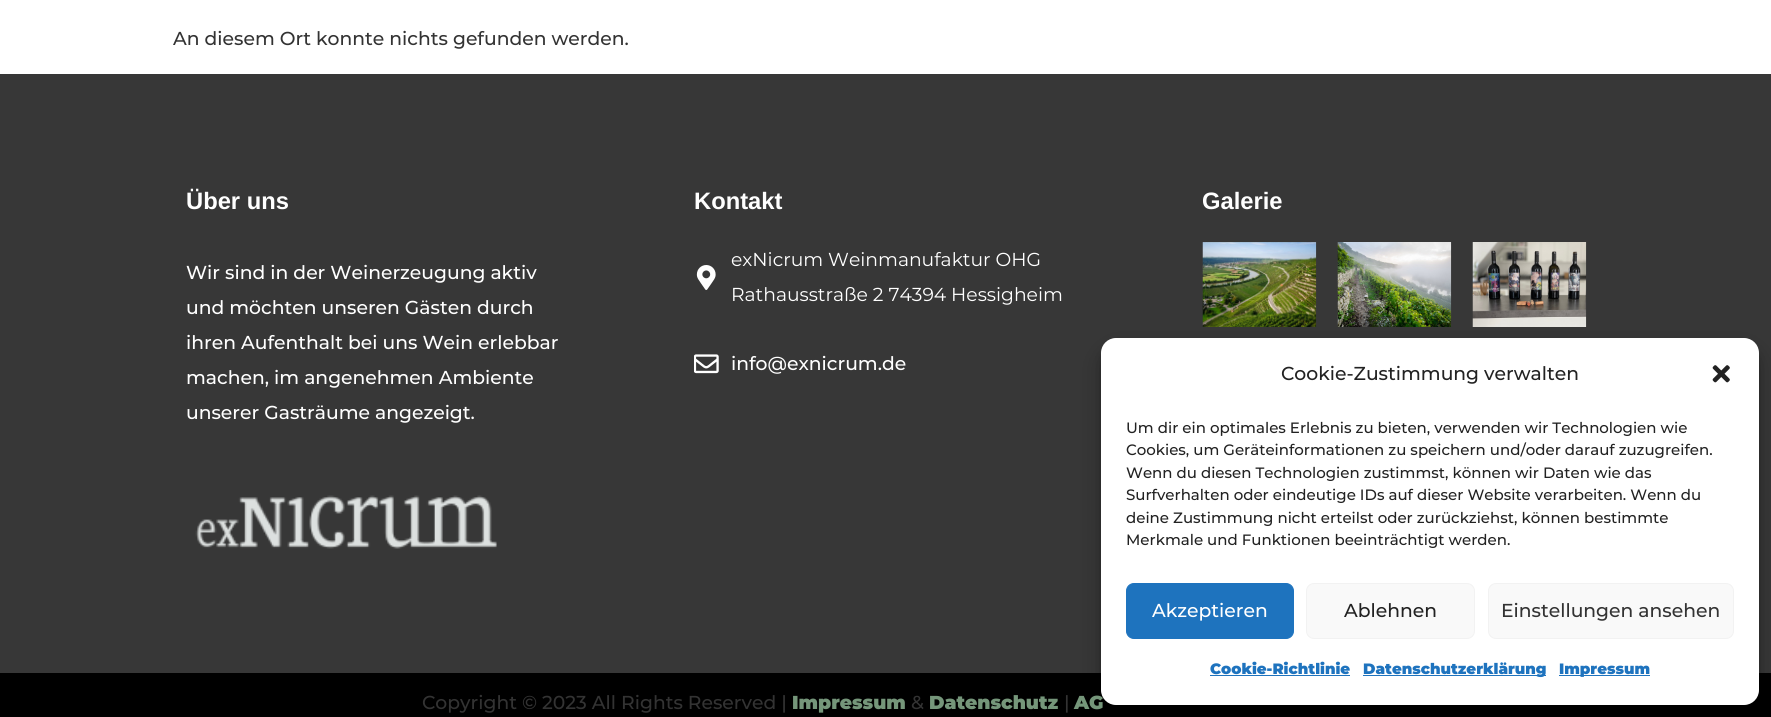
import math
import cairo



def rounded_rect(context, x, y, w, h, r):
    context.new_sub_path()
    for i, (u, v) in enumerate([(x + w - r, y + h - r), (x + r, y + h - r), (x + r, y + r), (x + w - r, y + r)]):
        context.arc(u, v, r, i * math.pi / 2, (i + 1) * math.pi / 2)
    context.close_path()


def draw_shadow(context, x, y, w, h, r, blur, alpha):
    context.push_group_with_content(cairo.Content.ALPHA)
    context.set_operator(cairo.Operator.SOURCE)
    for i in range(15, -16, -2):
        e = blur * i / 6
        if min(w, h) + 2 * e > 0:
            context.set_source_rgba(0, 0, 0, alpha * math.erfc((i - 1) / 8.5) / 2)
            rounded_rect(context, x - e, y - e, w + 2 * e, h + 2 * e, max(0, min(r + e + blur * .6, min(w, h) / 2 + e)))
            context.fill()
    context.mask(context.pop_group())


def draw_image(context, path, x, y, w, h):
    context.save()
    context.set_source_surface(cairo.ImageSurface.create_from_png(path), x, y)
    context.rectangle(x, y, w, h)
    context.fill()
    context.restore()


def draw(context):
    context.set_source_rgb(1, 1, 1)
    context.paint()
    context.set_source_rgb(55 / 255, 55 / 255, 55 / 255)
    context.rectangle(0, 74, 1771, 599)
    context.fill()
    draw_image(context, "images/1.png", 195, 495, 302, 54)
    draw_image(context, "images/2.png", 696, 265, 20, 25)
    draw_image(context, "images/3.png", 694, 354, 25, 20)
    draw_image(context, "images/4.png", 1202, 242, 115, 85)
    draw_image(context, "images/5.png", 1337, 242, 115, 85)
    draw_image(context, "images/6.png", 1472, 242, 115, 85)
    context.set_source_rgb(0, 0, 0)
    context.rectangle(0, 673, 1771, 44)
    context.fill()
    context.set_source_rgb(0, 0, 0)
    draw_shadow(context, 1101, 345, 658, 368, 15, 4, 0.23)
    draw_shadow(context, 1101, 350, 658, 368, 15, 12.5, 0.19)
    context.select_font_face("Montserrat Medium")
    context.set_font_size(18.75)
    context.set_source_rgb(51 / 255, 51 / 255, 51 / 255)
    context.move_to(173, 45)
    context.show_text("An diesem Ort konnte nichts gefunden werden.")
    context.select_font_face("Liberation Sans", cairo.FontSlant.NORMAL, cairo.FontWeight.BOLD)
    context.set_font_size(23.75)
    context.set_source_rgb(1, 1, 1)
    context.move_to(186, 209)
    context.show_text("Über uns")
    context.select_font_face("Montserrat Medium")
    context.set_font_size(18.75)
    context.move_to(186, 279)
    context.show_text("Wir sind in der Weinerzeugung aktiv")
    context.move_to(186, 314)
    context.show_text("und möchten unseren Gästen durch")
    context.move_to(186, 349)
    context.show_text("ihren Aufenthalt bei uns Wein erlebbar")
    context.move_to(186, 384)
    context.show_text("machen, im angenehmen Ambiente")
    context.move_to(186, 419)
    context.show_text("unserer Gasträume angezeigt.")
    context.select_font_face("Liberation Sans", cairo.FontSlant.NORMAL, cairo.FontWeight.BOLD)
    context.set_font_size(23.75)
    context.move_to(694, 209)
    context.show_text("Kontakt")
    context.select_font_face("Montserrat")
    context.set_font_size(18.75)
    context.move_to(731, 266)
    context.show_text("exNicrum Weinmanufaktur OHG")
    context.move_to(731, 301)
    context.show_text("Rathausstraße 2 74394 Hessigheim")
    context.select_font_face("Montserrat Medium")
    context.move_to(731, 370)
    context.show_text("info@exnicrum.de")
    context.select_font_face("Liberation Sans", cairo.FontSlant.NORMAL, cairo.FontWeight.BOLD)
    context.set_font_size(23.75)
    context.move_to(1202, 209)
    context.show_text("Galerie")
    context.select_font_face("Montserrat Medium")
    context.set_font_size(18.75)
    context.set_source_rgb(51 / 255, 51 / 255, 51 / 255)
    context.move_to(422, 709)
    context.show_text("Copyright © 2023 All Rights Reserved |")
    context.select_font_face("Montserrat Black")
    context.set_source_rgb(117 / 255, 150 / 255, 122 / 255)
    context.move_to(792, 709)
    context.show_text("Impressum")
    context.select_font_face("Montserrat Medium")
    context.set_source_rgb(51 / 255, 51 / 255, 51 / 255)
    context.move_to(911, 709)
    context.show_text("&")
    context.select_font_face("Montserrat Black")
    context.set_source_rgb(117 / 255, 150 / 255, 122 / 255)
    context.move_to(929, 709)
    context.show_text("Datenschutz")
    context.select_font_face("Montserrat Medium")
    context.set_source_rgb(51 / 255, 51 / 255, 51 / 255)
    context.move_to(1064, 709)
    context.show_text("|")
    context.select_font_face("Montserrat Black")
    context.set_source_rgb(117 / 255, 150 / 255, 122 / 255)
    context.move_to(1074, 709)
    context.show_text("AG")
    context.set_source_rgb(1, 1, 1)
    rounded_rect(context, 1101, 338, 658, 367, 15)
    context.fill()
    context.select_font_face("Montserrat Medium")
    context.set_source_rgb(34 / 255, 34 / 255, 34 / 255)
    context.move_to(1281, 380)
    context.show_text("Cookie-Zustimmung verwalten")
    draw_image(context, "images/7.png", 1712, 365, 18, 18)
    context.set_font_size(15)
    context.move_to(1126, 433)
    context.show_text("Um dir ein optimales Erlebnis zu bieten, verwenden wir Technologien wie")
    context.move_to(1126, 455)
    context.show_text("Cookies, um Geräteinformationen zu speichern und/oder darauf zuzugreifen.")
    context.move_to(1126, 478)
    context.show_text("Wenn du diesen Technologien zustimmst, können wir Daten wie das")
    context.move_to(1126, 500)
    context.show_text("Surfverhalten oder eindeutige IDs auf dieser Website verarbeiten. Wenn du")
    context.move_to(1126, 523)
    context.show_text("deine Zustimmung nicht erteilst oder zurückziehst, können bestimmte")
    context.move_to(1126, 545)
    context.show_text("Merkmale und Funktionen beeinträchtigt werden.")
    context.set_source_rgb(30 / 255, 115 / 255, 190 / 255)
    rounded_rect(context, 1126.5, 583.5, 167, 55, 7.5)
    context.fill_preserve()
    context.set_line_width(1)
    context.stroke()
    context.set_font_size(18.75)
    context.set_source_rgb(1, 1, 1)
    context.move_to(1152, 617)
    context.show_text("Akzeptieren")
    context.set_source_rgb(249 / 255, 249 / 255, 249 / 255)
    rounded_rect(context, 1306.5, 583.5, 168, 55, 7.5)
    context.fill_preserve()
    context.set_source_rgb(242 / 255, 242 / 255, 242 / 255)
    context.stroke()
    context.set_source_rgb(34 / 255, 34 / 255, 34 / 255)
    context.move_to(1344, 617)
    context.show_text("Ablehnen")
    context.set_source_rgb(249 / 255, 249 / 255, 249 / 255)
    rounded_rect(context, 1488.5, 583.5, 245, 55, 7.5)
    context.fill_preserve()
    context.set_source_rgb(242 / 255, 242 / 255, 242 / 255)
    context.stroke()
    context.set_source_rgb(51 / 255, 51 / 255, 51 / 255)
    context.move_to(1501, 617)
    context.show_text("Einstellungen ansehen")
    context.select_font_face("Montserrat Black")
    context.set_font_size(15)
    context.set_source_rgb(30 / 255, 115 / 255, 190 / 255)
    context.move_to(1210, 674)
    context.show_text("Cookie-Richtlinie")
    context.rectangle(1210, 675, 140, 1)
    context.fill()
    context.rectangle(1363, 675, 183, 1)
    context.fill()
    context.move_to(1363, 674)
    context.show_text("Datenschutzerklärung")
    context.rectangle(1559, 675, 91, 1)
    context.fill()
    context.move_to(1559, 674)
    context.show_text("Impressum")


surface = cairo.ImageSurface(cairo.Format.RGB24, 1771, 717)
context = cairo.Context(surface)
options = cairo.FontOptions()
options.set_hint_metrics(cairo.HintMetrics.OFF)
options.set_hint_style(cairo.HintStyle.NONE)
context.set_font_options(options)
context.set_miter_limit(4)
draw(context)
surface.write_to_png("out.png")
